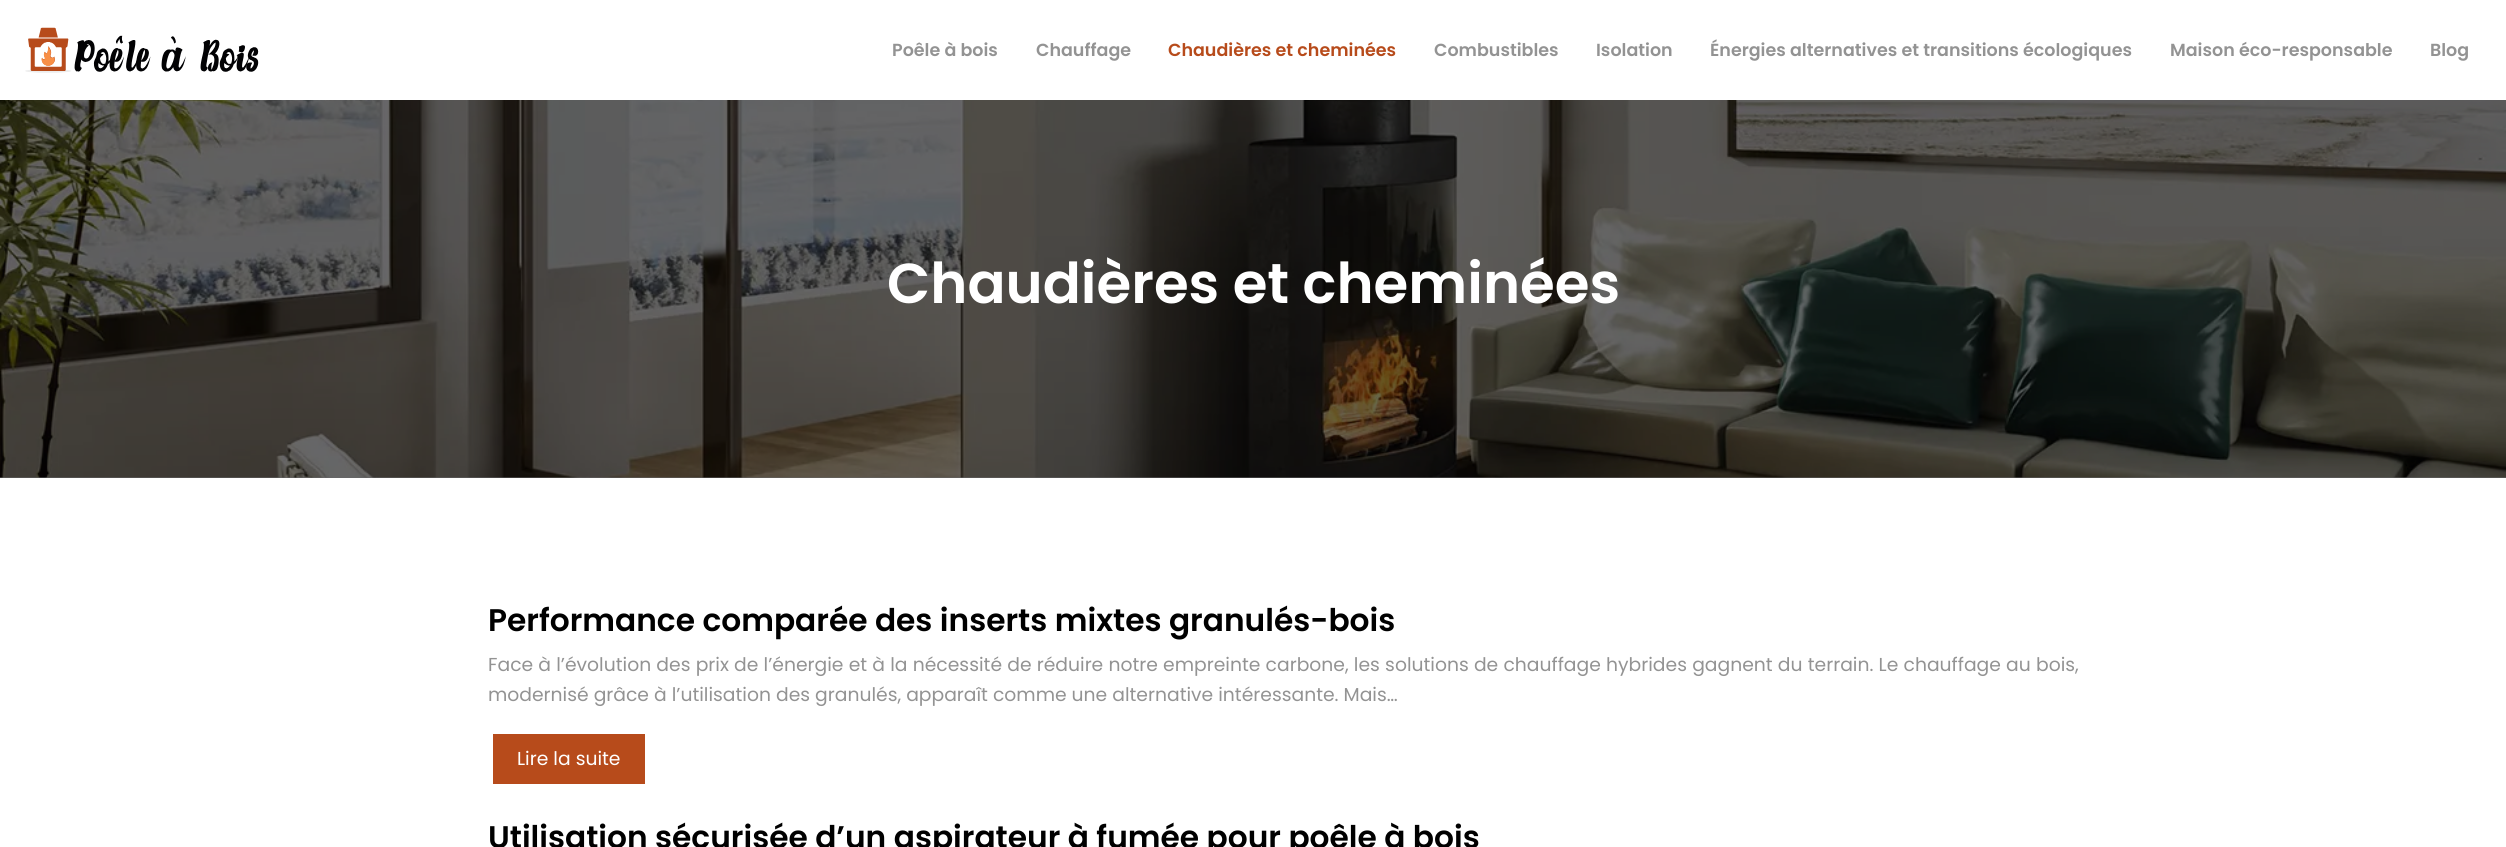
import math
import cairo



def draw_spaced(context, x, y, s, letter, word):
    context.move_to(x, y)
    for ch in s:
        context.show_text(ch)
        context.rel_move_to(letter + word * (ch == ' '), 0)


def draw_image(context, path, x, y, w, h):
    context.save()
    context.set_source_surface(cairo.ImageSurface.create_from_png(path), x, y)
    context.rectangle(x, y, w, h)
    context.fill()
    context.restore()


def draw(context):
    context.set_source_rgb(1, 1, 1)
    context.paint()
    context.set_source_rgb(103 / 255, 103 / 255, 104 / 255)
    context.rectangle(0, 477, 2506, 1)
    context.fill()
    draw_image(context, "images/1.png", 25, 27, 234, 46)
    draw_image(context, "images/2.png", 0, 100, 2506, 378)
    context.set_source_rgb(183 / 255, 75 / 255, 27 / 255)
    context.rectangle(493, 734, 152, 50)
    context.fill()
    context.select_font_face("Poppins SemiBold")
    context.set_font_size(17.5)
    context.set_source_rgb(147 / 255, 147 / 255, 147 / 255)
    context.move_to(892, 56)
    context.show_text("Poêle à bois")
    context.move_to(1036, 56)
    context.show_text("Chauffage")
    context.set_source_rgb(183 / 255, 75 / 255, 27 / 255)
    context.move_to(1168, 56)
    context.show_text("Chaudières et cheminées")
    context.set_source_rgb(147 / 255, 147 / 255, 147 / 255)
    context.move_to(1434, 56)
    context.show_text("Combustibles")
    context.move_to(1596, 56)
    context.show_text("Isolation")
    context.move_to(1710, 56)
    context.show_text("Énergies alternatives et transitions écologiques")
    context.move_to(2170, 56)
    context.show_text("Maison éco-responsable")
    context.move_to(2430, 56)
    context.show_text("Blog")
    context.set_font_size(56.25)
    context.set_source_rgb(1, 1, 1)
    context.move_to(887, 303)
    context.show_text("Chaudières et cheminées")
    context.set_font_size(31.25)
    context.set_source_rgb(0, 0, 0)
    context.move_to(488, 631)
    context.show_text("Performance comparée des inserts mixtes granulés-bois")
    context.select_font_face("Poppins")
    context.set_font_size(18.75)
    context.set_source_rgb(147 / 255, 147 / 255, 147 / 255)
    draw_spaced(context, 488, 671, "Face à l’évolution des prix de l’énergie et à la nécessité de réduire notre empreinte carbone, les solutions de chauffage hybrides gagnent du terrain. Le chauffage au bois,", 0, 0.2)
    context.move_to(488, 701)
    context.show_text("modernisé grâce à l’utilisation des granulés, apparaît comme une alternative intéressante. Mais…")
    context.set_source_rgb(1, 1, 1)
    context.move_to(517, 765)
    context.show_text("Lire la suite")
    context.select_font_face("Poppins SemiBold")
    context.set_font_size(31.25)
    context.set_source_rgb(0, 0, 0)
    context.move_to(488, 848)
    context.show_text("Utilisation sécurisée d’un aspirateur à fumée pour poêle à bois")


surface = cairo.ImageSurface(cairo.Format.RGB24, 2506, 847)
context = cairo.Context(surface)
options = cairo.FontOptions()
options.set_hint_metrics(cairo.HintMetrics.OFF)
options.set_hint_style(cairo.HintStyle.NONE)
context.set_font_options(options)
context.set_miter_limit(4)
draw(context)
surface.write_to_png("out.png")
